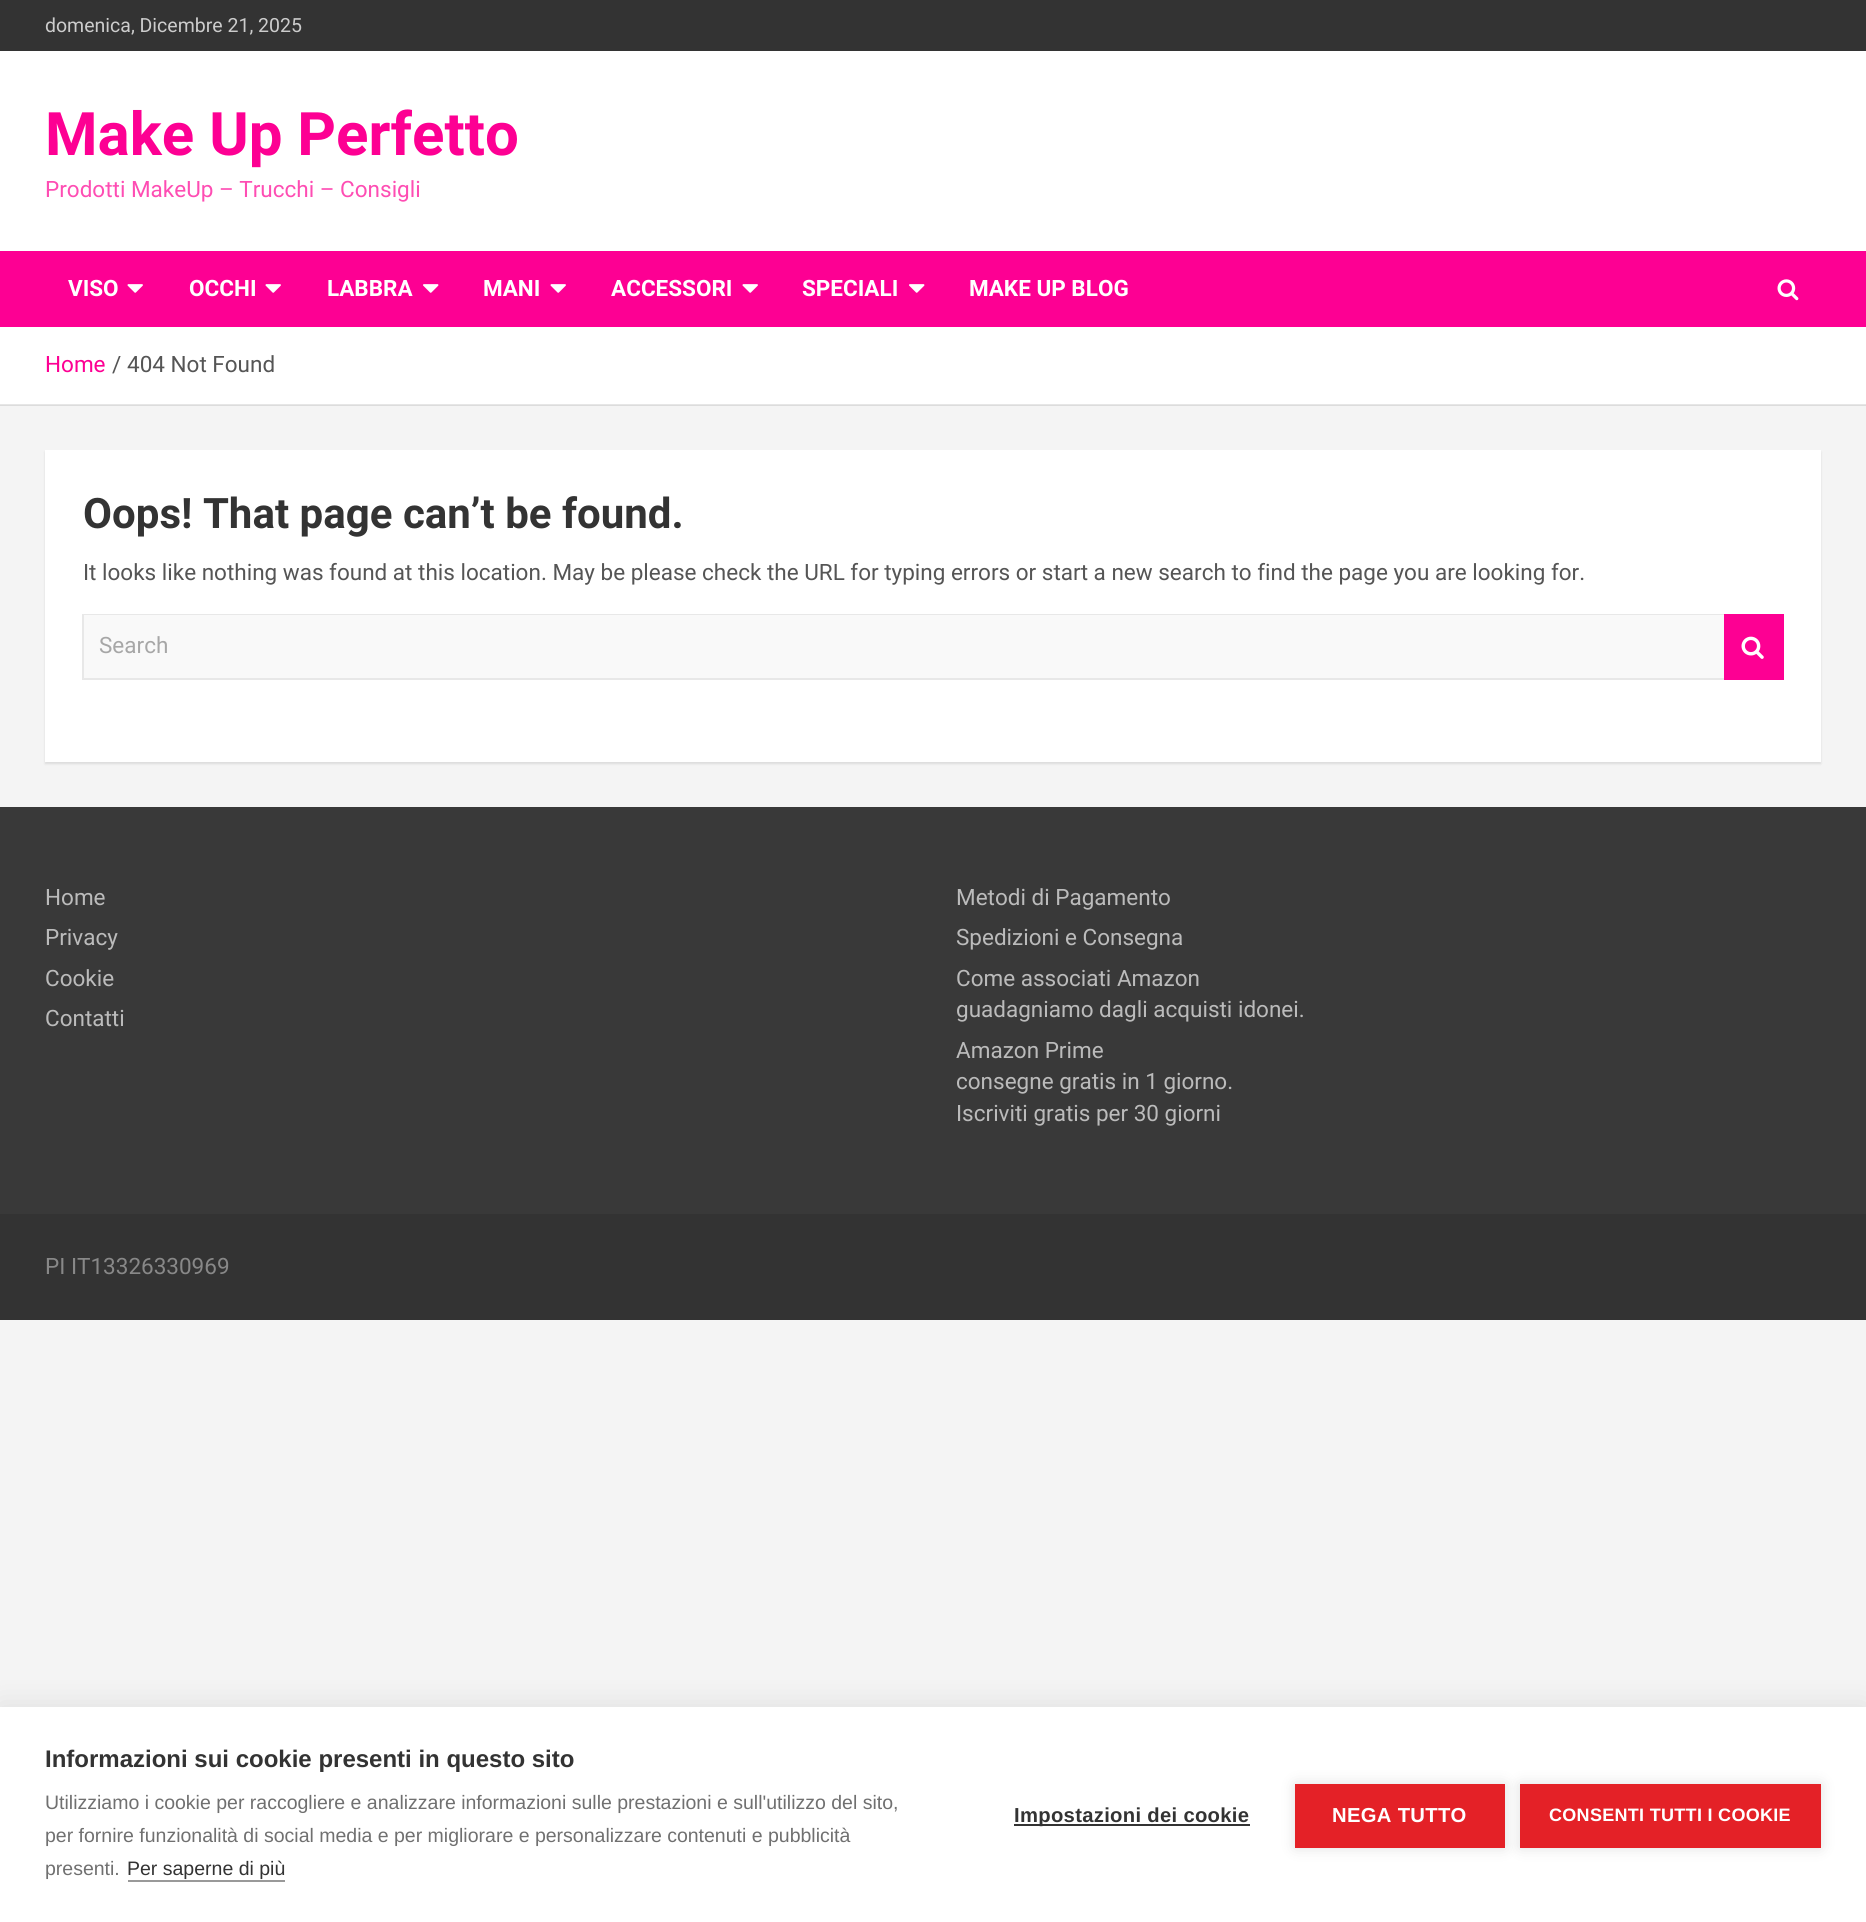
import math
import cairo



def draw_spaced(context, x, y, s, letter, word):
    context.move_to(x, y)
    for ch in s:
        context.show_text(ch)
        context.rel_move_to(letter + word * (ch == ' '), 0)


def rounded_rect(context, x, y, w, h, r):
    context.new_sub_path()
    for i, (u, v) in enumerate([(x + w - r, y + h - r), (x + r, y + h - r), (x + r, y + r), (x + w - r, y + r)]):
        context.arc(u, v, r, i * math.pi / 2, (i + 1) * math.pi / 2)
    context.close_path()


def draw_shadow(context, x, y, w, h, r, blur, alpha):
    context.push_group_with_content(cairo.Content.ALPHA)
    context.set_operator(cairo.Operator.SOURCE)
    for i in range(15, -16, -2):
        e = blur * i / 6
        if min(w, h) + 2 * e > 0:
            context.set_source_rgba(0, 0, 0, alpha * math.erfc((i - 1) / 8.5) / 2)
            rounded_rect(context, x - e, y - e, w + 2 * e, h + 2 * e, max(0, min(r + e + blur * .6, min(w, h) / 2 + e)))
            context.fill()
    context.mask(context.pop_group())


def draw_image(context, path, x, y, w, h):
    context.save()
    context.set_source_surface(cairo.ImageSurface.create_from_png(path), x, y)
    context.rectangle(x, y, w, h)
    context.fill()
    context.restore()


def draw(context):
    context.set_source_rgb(244 / 255, 244 / 255, 244 / 255)
    context.paint()
    context.set_source_rgb(220 / 255, 220 / 255, 220 / 255)
    context.rectangle(0, 405, 1866, 1)
    context.fill()
    context.set_source_rgb(51 / 255, 51 / 255, 51 / 255)
    context.rectangle(0, 0, 1866, 51)
    context.fill()
    context.set_source_rgb(1, 1, 1)
    context.rectangle(0, 51, 1866, 200)
    context.fill()
    context.set_source_rgb(253 / 255, 0, 147 / 255)
    context.rectangle(0, 251, 1866, 76)
    context.fill()
    draw_image(context, "images/1.png", 127, 284, 16, 9)
    draw_image(context, "images/1.png", 265, 284, 16, 9)
    draw_image(context, "images/2.png", 423, 284, 16, 9)
    draw_image(context, "images/1.png", 550, 284, 16, 9)
    draw_image(context, "images/1.png", 742, 284, 16, 9)
    draw_image(context, "images/2.png", 909, 284, 16, 9)
    draw_image(context, "images/3.png", 1777, 279, 22, 22)
    context.set_source_rgb(1, 1, 1)
    context.rectangle(0, 327, 1866, 77)
    context.fill()
    context.set_source_rgb(230 / 255, 230 / 255, 230 / 255)
    context.rectangle(0, 404, 1866, 1)
    context.fill()
    context.set_source_rgb(0, 0, 0)
    draw_shadow(context, 45, 452, 1776, 312, 0, 1, 0.1)
    context.set_source_rgb(1, 1, 1)
    context.rectangle(45, 450, 1776, 312)
    context.fill()
    context.set_source_rgb(249 / 255, 249 / 255, 249 / 255)
    context.rectangle(84, 615, 1640, 63)
    context.fill()
    context.set_source_rgb(232 / 255, 232 / 255, 232 / 255)
    context.new_path()
    context.move_to(82, 614)
    context.line_to(1724, 614)
    context.line_to(1724, 615)
    context.line_to(84, 615)
    context.close_path()
    context.fill()
    context.new_path()
    context.move_to(1724, 680)
    context.line_to(82, 680)
    context.line_to(84, 678)
    context.line_to(1724, 678)
    context.close_path()
    context.fill()
    context.set_source_rgba(0, 0, 0, 0.09)
    context.new_path()
    context.move_to(82, 680)
    context.line_to(82, 614)
    context.line_to(84, 615)
    context.line_to(84, 678)
    context.close_path()
    context.fill()
    context.set_source_rgb(253 / 255, 0, 147 / 255)
    context.rectangle(1724, 614, 60, 66)
    context.fill()
    draw_image(context, "images/4.png", 1741, 636, 23, 23)
    context.set_source_rgb(57 / 255, 57 / 255, 57 / 255)
    context.rectangle(0, 807, 1866, 407)
    context.fill()
    context.set_source_rgb(51 / 255, 51 / 255, 51 / 255)
    context.rectangle(0, 1214, 1866, 106)
    context.fill()
    context.set_source_rgb(0, 0, 0)
    draw_shadow(context, 0, 1707, 1866, 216, 0, 15, 0.1)
    context.set_source_rgb(1, 1, 1)
    context.rectangle(0, 1707, 1866, 215)
    context.fill()
    context.set_source_rgb(153 / 255, 153 / 255, 153 / 255)
    context.rectangle(128, 1880, 157, 2)
    context.fill()
    context.set_source_rgb(51 / 255, 51 / 255, 51 / 255)
    context.rectangle(1014, 1824, 236, 2)
    context.fill()
    context.set_source_rgb(0, 0, 0)
    draw_shadow(context, 1295, 1784, 210, 64, 0, 7.5, 0.12)
    context.set_source_rgb(228 / 255, 33 / 255, 39 / 255)
    context.rectangle(1295, 1784, 210, 64)
    context.fill()
    context.set_source_rgb(0, 0, 0)
    draw_shadow(context, 1520, 1784, 301, 64, 0, 7.5, 0.12)
    context.set_source_rgb(228 / 255, 33 / 255, 39 / 255)
    context.rectangle(1520, 1784, 301, 64)
    context.fill()
    context.select_font_face("Roboto")
    context.set_font_size(19.5)
    context.set_source_rgb(204 / 255, 204 / 255, 204 / 255)
    context.move_to(45, 32)
    context.show_text("domenica, Dicembre 21, 2025")
    context.select_font_face("Roboto", cairo.FontSlant.NORMAL, cairo.FontWeight.BOLD)
    context.set_font_size(60)
    context.set_source_rgb(253 / 255, 0, 147 / 255)
    context.move_to(45, 155)
    context.show_text("Make Up Perfetto")
    context.select_font_face("Roboto")
    context.set_font_size(22.5)
    context.set_source_rgb(254 / 255, 77 / 255, 179 / 255)
    context.move_to(45, 197)
    context.show_text("Prodotti MakeUp – Trucchi – Consigli")
    context.select_font_face("Roboto", cairo.FontSlant.NORMAL, cairo.FontWeight.BOLD)
    context.set_source_rgb(1, 1, 1)
    context.move_to(68, 296)
    context.show_text("VISO")
    context.move_to(189, 296)
    context.show_text("OCCHI")
    context.move_to(327, 296)
    context.show_text("LABBRA")
    context.move_to(483, 296)
    context.show_text("MANI")
    context.move_to(611, 296)
    context.show_text("ACCESSORI")
    context.move_to(802, 296)
    context.show_text("SPECIALI")
    context.move_to(969, 296)
    context.show_text("MAKE UP BLOG")
    context.select_font_face("Roboto")
    context.set_source_rgb(253 / 255, 0, 147 / 255)
    context.move_to(45, 372)
    context.show_text("Home")
    context.set_source_rgb(85 / 255, 85 / 255, 85 / 255)
    context.move_to(112, 372)
    context.show_text("/")
    context.move_to(127, 372)
    context.show_text("404 Not Found")
    context.select_font_face("Roboto", cairo.FontSlant.NORMAL, cairo.FontWeight.BOLD)
    context.set_font_size(42)
    context.set_source_rgb(51 / 255, 51 / 255, 51 / 255)
    context.move_to(83, 528)
    context.show_text("Oops! That page can’t be found.")
    context.select_font_face("Roboto")
    context.set_font_size(22.5)
    context.set_source_rgb(85 / 255, 85 / 255, 85 / 255)
    context.move_to(83, 580)
    context.show_text("It looks like nothing was found at this location. May be please check the URL for typing errors or start a new search to find the page you are looking for.")
    context.set_source_rgb(167 / 255, 167 / 255, 167 / 255)
    context.move_to(99, 653)
    context.show_text("Search")
    context.set_source_rgb(187 / 255, 187 / 255, 187 / 255)
    context.move_to(45, 905)
    context.show_text("Home")
    context.move_to(45, 945)
    context.show_text("Privacy")
    context.move_to(45, 986)
    context.show_text("Cookie")
    context.move_to(45, 1026)
    context.show_text("Contatti")
    context.move_to(956, 905)
    context.show_text("Metodi di Pagamento")
    context.move_to(956, 945)
    context.show_text("Spedizioni e Consegna")
    context.move_to(956, 986)
    context.show_text("Come associati Amazon")
    context.move_to(956, 1017)
    context.show_text("guadagniamo dagli acquisti idonei.")
    context.move_to(956, 1058)
    context.show_text("Amazon Prime")
    context.move_to(956, 1089)
    context.show_text("consegne gratis in 1 giorno.")
    context.move_to(956, 1121)
    context.show_text("Iscriviti gratis per 30 giorni")
    context.set_source_rgb(136 / 255, 136 / 255, 136 / 255)
    context.move_to(45, 1274)
    context.show_text("PI IT13326330969")
    context.select_font_face("Liberation Sans", cairo.FontSlant.NORMAL, cairo.FontWeight.BOLD)
    context.set_font_size(24)
    context.set_source_rgb(51 / 255, 51 / 255, 51 / 255)
    context.move_to(45, 1767)
    context.show_text("Informazioni sui cookie presenti in questo sito")
    context.select_font_face("Liberation Sans")
    context.set_font_size(19.5)
    context.set_source_rgb(112 / 255, 112 / 255, 112 / 255)
    context.move_to(45, 1809)
    context.show_text("Utilizziamo i cookie per raccogliere e analizzare informazioni sulle prestazioni e sull'utilizzo del sito,")
    context.move_to(45, 1842)
    context.show_text("per fornire funzionalità di social media e per migliorare e personalizzare contenuti e pubblicità")
    context.move_to(45, 1875)
    context.show_text("presenti.")
    context.set_source_rgb(51 / 255, 51 / 255, 51 / 255)
    context.move_to(127, 1875)
    context.show_text("Per saperne di più")
    context.select_font_face("Liberation Sans", cairo.FontSlant.NORMAL, cairo.FontWeight.BOLD)
    context.set_font_size(20.25)
    draw_spaced(context, 1014, 1822, "Impostazioni dei cookie", 0.3, 0)
    context.set_source_rgb(1, 1, 1)
    draw_spaced(context, 1332, 1822, "NEGA TUTTO", 0.3, 0)
    context.set_font_size(18)
    draw_spaced(context, 1549, 1821, "CONSENTI TUTTI I COOKIE", 0.3, 0)


surface = cairo.ImageSurface(cairo.Format.RGB24, 1866, 1922)
context = cairo.Context(surface)
options = cairo.FontOptions()
options.set_hint_metrics(cairo.HintMetrics.OFF)
options.set_hint_style(cairo.HintStyle.NONE)
context.set_font_options(options)
context.set_miter_limit(4)
draw(context)
surface.write_to_png("out.png")
